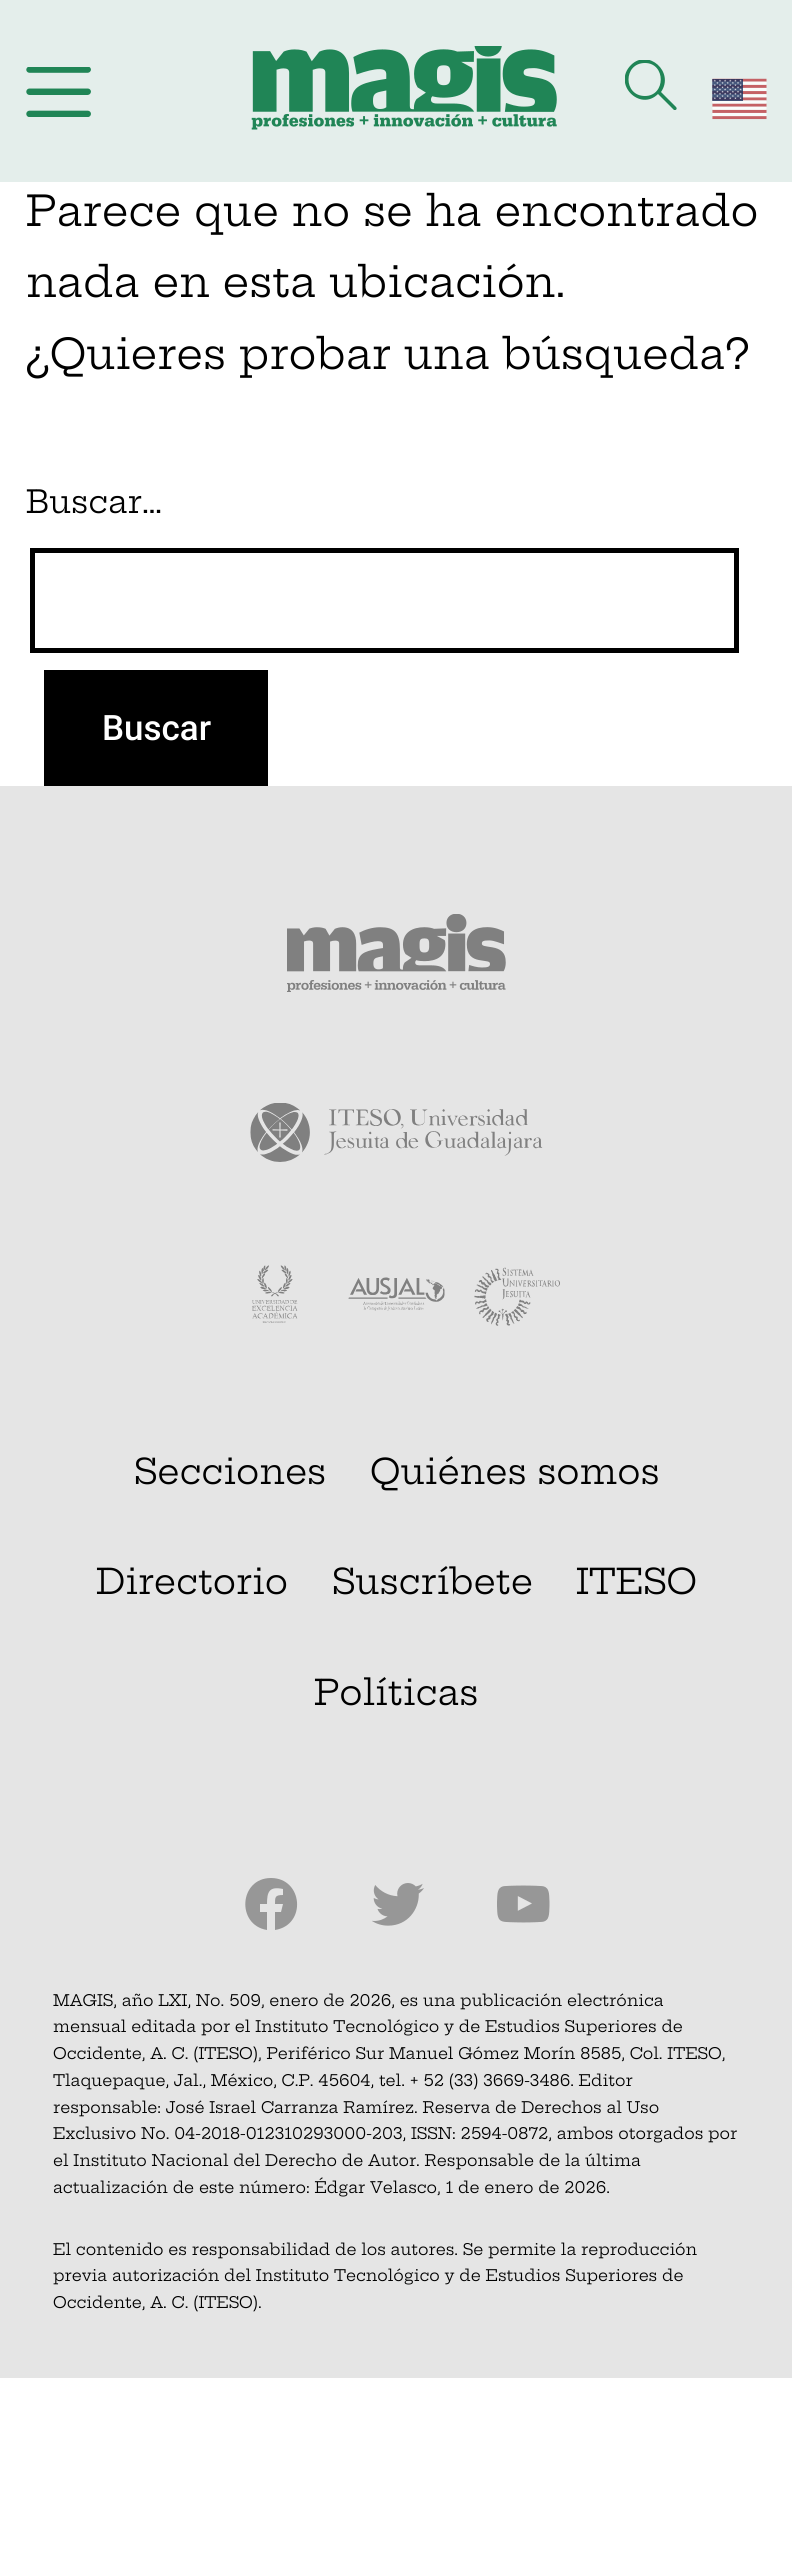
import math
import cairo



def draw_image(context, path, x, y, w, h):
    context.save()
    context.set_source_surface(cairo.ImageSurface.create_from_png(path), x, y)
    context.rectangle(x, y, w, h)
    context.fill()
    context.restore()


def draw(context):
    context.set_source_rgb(1, 1, 1)
    context.paint()
    context.set_source_rgb(228 / 255, 238 / 255, 235 / 255)
    context.rectangle(0, 0, 792, 182)
    context.fill()
    draw_image(context, "images/1.png", 26, 67, 65, 50)
    draw_image(context, "images/2.png", 251, 46, 306, 84)
    context.save()
    context.rectangle(625, 60, 52, 50)
    context.clip()
    context.set_source_rgb(32 / 255, 133 / 255, 86 / 255)
    context.new_path()
    context.move_to(676, 107)
    context.line_to(661, 92)
    context.curve_to(675, 72, 648, 48, 631, 65)
    context.curve_to(612, 84, 640, 112, 658, 94)
    context.line_to(674, 110)
    context.curve_to(675, 111, 678, 109, 676, 107)
    context.close_path()
    context.move_to(645, 96)
    context.curve_to(623, 96, 623, 63, 645, 63)
    context.curve_to(666, 63, 666, 96, 645, 96)
    context.close_path()
    context.fill()
    context.restore()
    draw_image(context, "images/3.png", 712, 78, 55, 42)
    context.rectangle(32.5, 550.5, 704, 100)
    context.set_source_rgb(0, 0, 0)
    context.set_line_width(5)
    context.stroke()
    context.rectangle(44, 670, 224, 116)
    context.fill()
    context.set_source_rgb(229 / 255, 229 / 255, 229 / 255)
    context.rectangle(0, 786, 792, 1592)
    context.fill()
    draw_image(context, "images/4.png", 287, 914, 219, 78)
    draw_image(context, "images/5.png", 250, 1103, 293, 59)
    draw_image(context, "images/6.png", 252, 1265, 46, 58)
    draw_image(context, "images/7.png", 348, 1277, 97, 34)
    draw_image(context, "images/8.png", 474, 1267, 86, 59)
    context.set_source_rgb(151 / 255, 151 / 255, 151 / 255)
    context.new_path()
    context.move_to(271, 1878)
    context.curve_to(239, 1878, 236, 1925, 267, 1930)
    context.line_to(267, 1912)
    context.line_to(260, 1912)
    context.line_to(260, 1904)
    context.line_to(267, 1904)
    context.curve_to(267, 1892, 269, 1886, 283, 1889)
    context.line_to(283, 1895)
    context.curve_to(275, 1895, 275, 1897, 275, 1904)
    context.line_to(283, 1904)
    context.line_to(281, 1912)
    context.line_to(275, 1912)
    context.line_to(275, 1930)
    context.curve_to(307, 1925, 303, 1878, 271, 1878)
    context.close_path()
    context.fill()
    draw_image(context, "images/9.png", 372, 1883, 52, 43)
    draw_image(context, "images/10.png", 497, 1885, 53, 38)
    context.select_font_face("Hepta Slab")
    context.set_font_size(42)
    context.set_source_rgb(0, 0, 0)
    context.move_to(26, 226)
    context.show_text("Parece que no se ha encontrado")
    context.move_to(26, 297)
    context.show_text("nada en esta ubicación.")
    context.move_to(26, 369)
    context.show_text("¿Quieres probar una búsqueda?")
    context.set_font_size(31.5)
    context.move_to(26, 513)
    context.show_text("Buscar…")
    context.select_font_face("Roboto Medium")
    context.set_font_size(35)
    context.set_source_rgb(1, 1, 1)
    context.move_to(102, 740)
    context.show_text("Buscar")
    context.select_font_face("Hepta Slab")
    context.set_source_rgb(0, 0, 0)
    context.move_to(134, 1484)
    context.show_text("Secciones")
    context.move_to(370, 1484)
    context.show_text("Quiénes somos")
    context.move_to(96, 1594)
    context.show_text("Directorio")
    context.move_to(332, 1594)
    context.show_text("Suscríbete")
    context.move_to(576, 1594)
    context.show_text("ITESO")
    context.move_to(314, 1705)
    context.show_text("Políticas")
    context.set_font_size(15.75)
    context.move_to(53, 2006)
    context.show_text("MAGIS, año LXI, No. 509, enero de 2026, es una publicación electrónica")
    context.move_to(53, 2032)
    context.show_text("mensual editada por el Instituto Tecnológico y de Estudios Superiores de")
    context.move_to(53, 2059)
    context.show_text("Occidente, A. C. (ITESO), Periférico Sur Manuel Gómez Morín 8585, Col. ITESO,")
    context.move_to(53, 2086)
    context.show_text("Tlaquepaque, Jal., México, C.P. 45604, tel. + 52 (33) 3669-3486. Editor")
    context.move_to(53, 2113)
    context.show_text("responsable: José Israel Carranza Ramírez. Reserva de Derechos al Uso")
    context.move_to(53, 2139)
    context.show_text("Exclusivo No. 04-2018-012310293000-203, ISSN: 2594-0872, ambos otorgados por")
    context.move_to(53, 2166)
    context.show_text("el Instituto Nacional del Derecho de Autor. Responsable de la última")
    context.move_to(53, 2193)
    context.show_text("actualización de este número: Édgar Velasco, 1 de enero de 2026.")
    context.move_to(53, 2255)
    context.show_text("El contenido es responsabilidad de los autores. Se permite la reproducción")
    context.move_to(53, 2281)
    context.show_text("previa autorización del Instituto Tecnológico y de Estudios Superiores de")
    context.move_to(53, 2308)
    context.show_text("Occidente, A. C. (ITESO).")


surface = cairo.ImageSurface(cairo.Format.RGB24, 792, 2555)
context = cairo.Context(surface)
options = cairo.FontOptions()
options.set_hint_metrics(cairo.HintMetrics.OFF)
options.set_hint_style(cairo.HintStyle.NONE)
context.set_font_options(options)
context.set_miter_limit(4)
draw(context)
surface.write_to_png("out.png")
